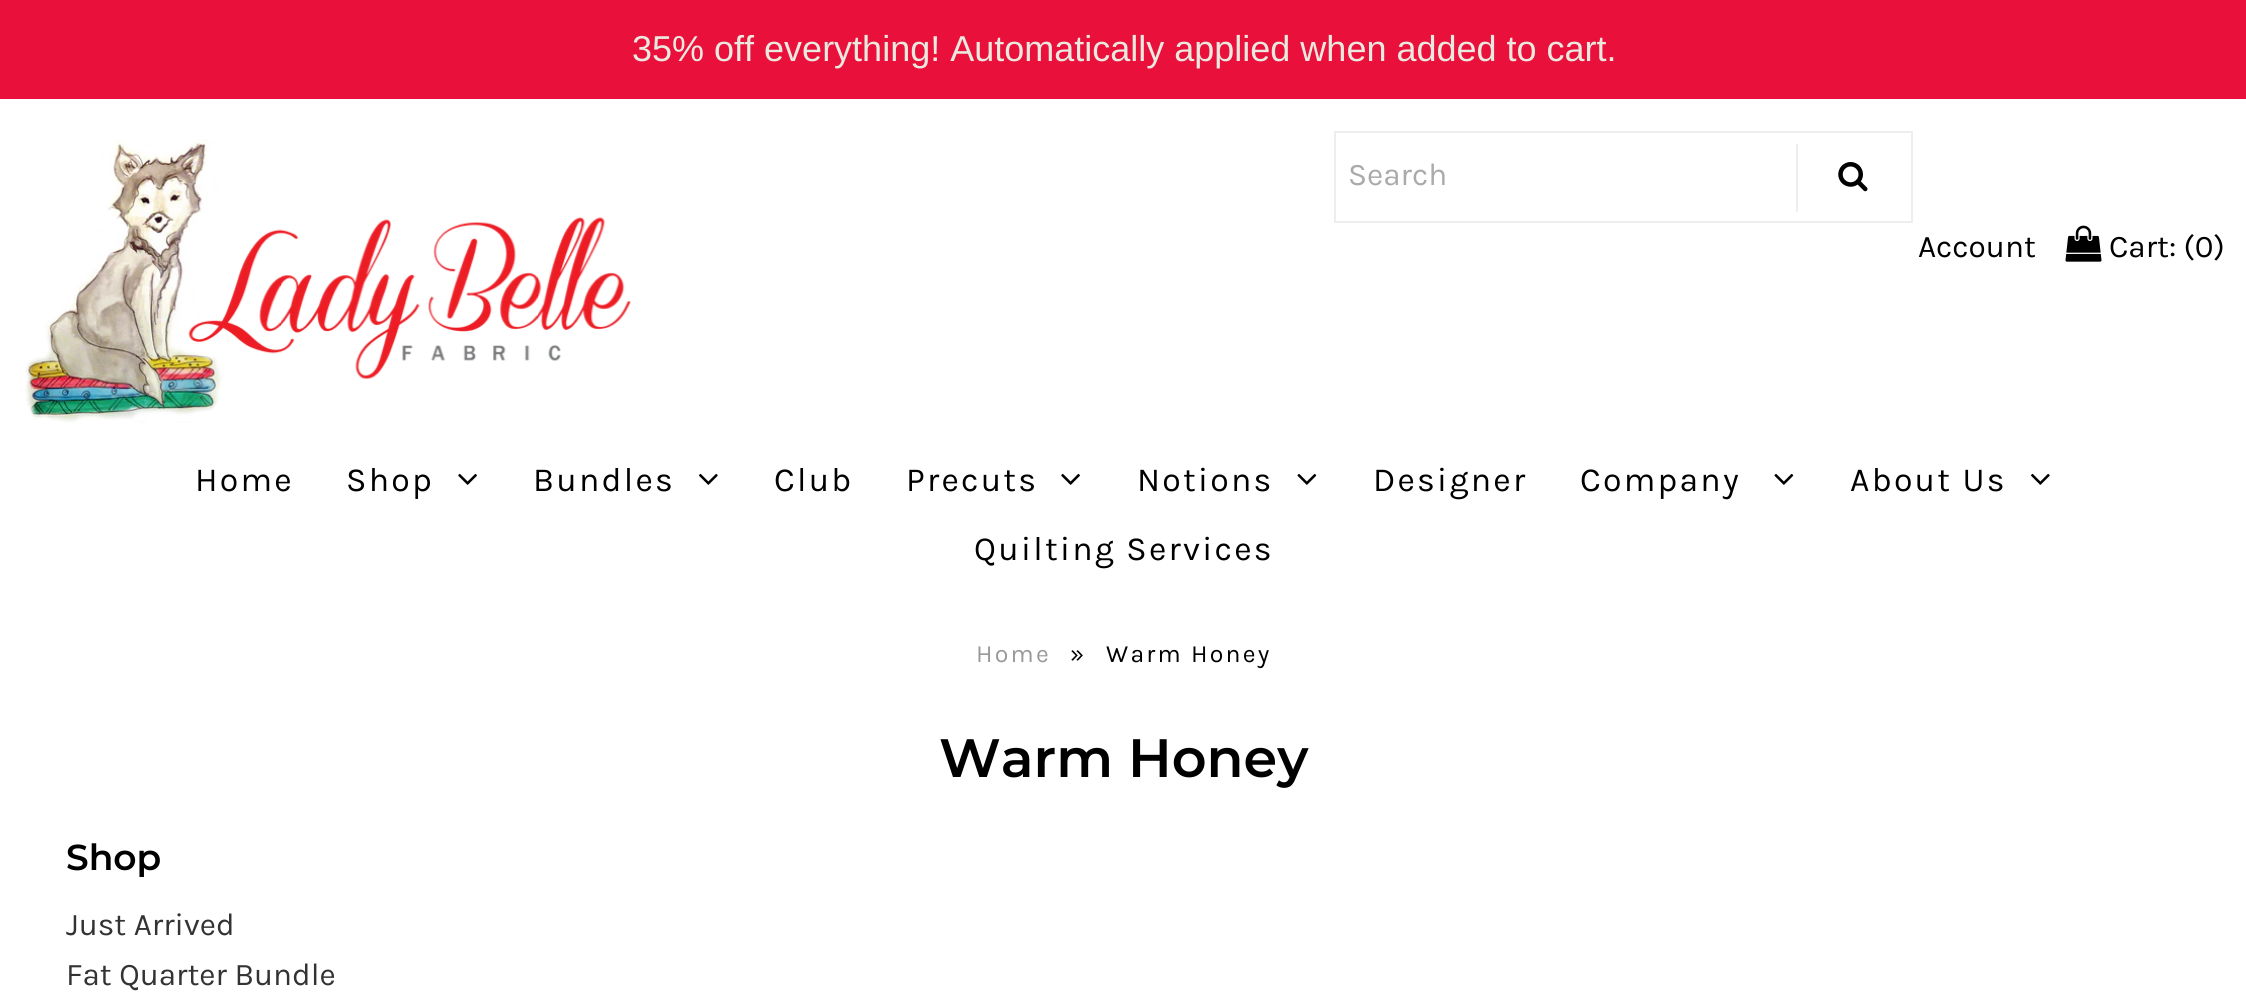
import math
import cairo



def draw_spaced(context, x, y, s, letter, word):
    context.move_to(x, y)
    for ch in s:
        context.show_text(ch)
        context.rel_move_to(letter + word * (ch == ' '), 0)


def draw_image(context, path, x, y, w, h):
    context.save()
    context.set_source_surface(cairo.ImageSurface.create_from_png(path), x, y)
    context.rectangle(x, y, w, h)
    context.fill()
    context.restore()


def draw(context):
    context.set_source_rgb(1, 1, 1)
    context.paint()
    context.set_source_rgb(233 / 255, 17 / 255, 60 / 255)
    context.rectangle(0, 0, 2246, 99)
    context.fill()
    draw_image(context, "images/1.png", 25, 139, 606, 284)
    context.rectangle(1335, 132, 577, 90)
    context.set_source_rgb(238 / 255, 238 / 255, 238 / 255)
    context.stroke()
    context.rectangle(1796, 144, 2, 68)
    context.fill()
    draw_image(context, "images/2.png", 1838, 162, 30, 30)
    draw_image(context, "images/3.png", 2065, 225, 37, 37)
    draw_image(context, "images/4.png", 458, 473, 19, 12)
    draw_image(context, "images/5.png", 699, 473, 19, 12)
    draw_image(context, "images/4.png", 1061, 473, 19, 12)
    draw_image(context, "images/6.png", 1297, 473, 20, 12)
    draw_image(context, "images/6.png", 1774, 473, 20, 12)
    draw_image(context, "images/5.png", 2031, 473, 19, 12)
    context.select_font_face("Liberation Sans")
    context.set_font_size(36)
    context.set_source_rgb(234 / 255, 233 / 255, 223 / 255)
    context.move_to(632, 61)
    context.show_text("35% off everything! Automatically applied when added to cart.")
    context.select_font_face("Karla")
    context.set_font_size(31.5)
    context.set_source_rgb(170 / 255, 170 / 255, 170 / 255)
    context.move_to(1348, 185)
    context.show_text("Search")
    context.set_source_rgb(0, 0, 0)
    context.move_to(1918, 257)
    context.show_text("Account")
    context.move_to(2109, 257)
    context.show_text("Cart: (0)")
    context.set_font_size(33.75)
    draw_spaced(context, 195, 491, "Home", 2.25, 0)
    draw_spaced(context, 346, 491, "Shop", 2.25, 0)
    draw_spaced(context, 533, 491, "Bundles", 2.25, 0)
    draw_spaced(context, 774, 491, "Club", 2.25, 0)
    draw_spaced(context, 906, 491, "Precuts", 2.25, 0)
    draw_spaced(context, 1137, 491, "Notions", 2.25, 0)
    draw_spaced(context, 1373, 491, "Designer", 2.25, 0)
    draw_spaced(context, 1580, 491, "Company", 2.25, 0)
    draw_spaced(context, 1850, 491, "About Us", 2.25, 0)
    draw_spaced(context, 974, 560, "Quilting Services", 2.25, 0)
    context.set_font_size(24.75)
    context.set_source_rgb(153 / 255, 153 / 255, 153 / 255)
    draw_spaced(context, 976, 662, "Home", 2.25, 0)
    context.set_source_rgb(0, 0, 0)
    draw_spaced(context, 1070, 662, "»", 2.25, 0)
    draw_spaced(context, 1106, 662, "Warm Honey", 2.25, 0)
    context.select_font_face("Montserrat SemiBold")
    context.set_font_size(54)
    context.move_to(939, 777)
    context.show_text("Warm Honey")
    context.set_font_size(36)
    context.move_to(66, 870)
    context.show_text("Shop")
    context.select_font_face("Karla")
    context.set_font_size(31.5)
    context.set_source_rgb(51 / 255, 51 / 255, 51 / 255)
    context.move_to(66, 935)
    context.show_text("Just Arrived")
    context.move_to(66, 985)
    context.show_text("Fat Quarter Bundle")


surface = cairo.ImageSurface(cairo.Format.RGB24, 2246, 1006)
context = cairo.Context(surface)
options = cairo.FontOptions()
options.set_hint_metrics(cairo.HintMetrics.OFF)
options.set_hint_style(cairo.HintStyle.NONE)
context.set_font_options(options)
context.set_miter_limit(4)
draw(context)
surface.write_to_png("out.png")
